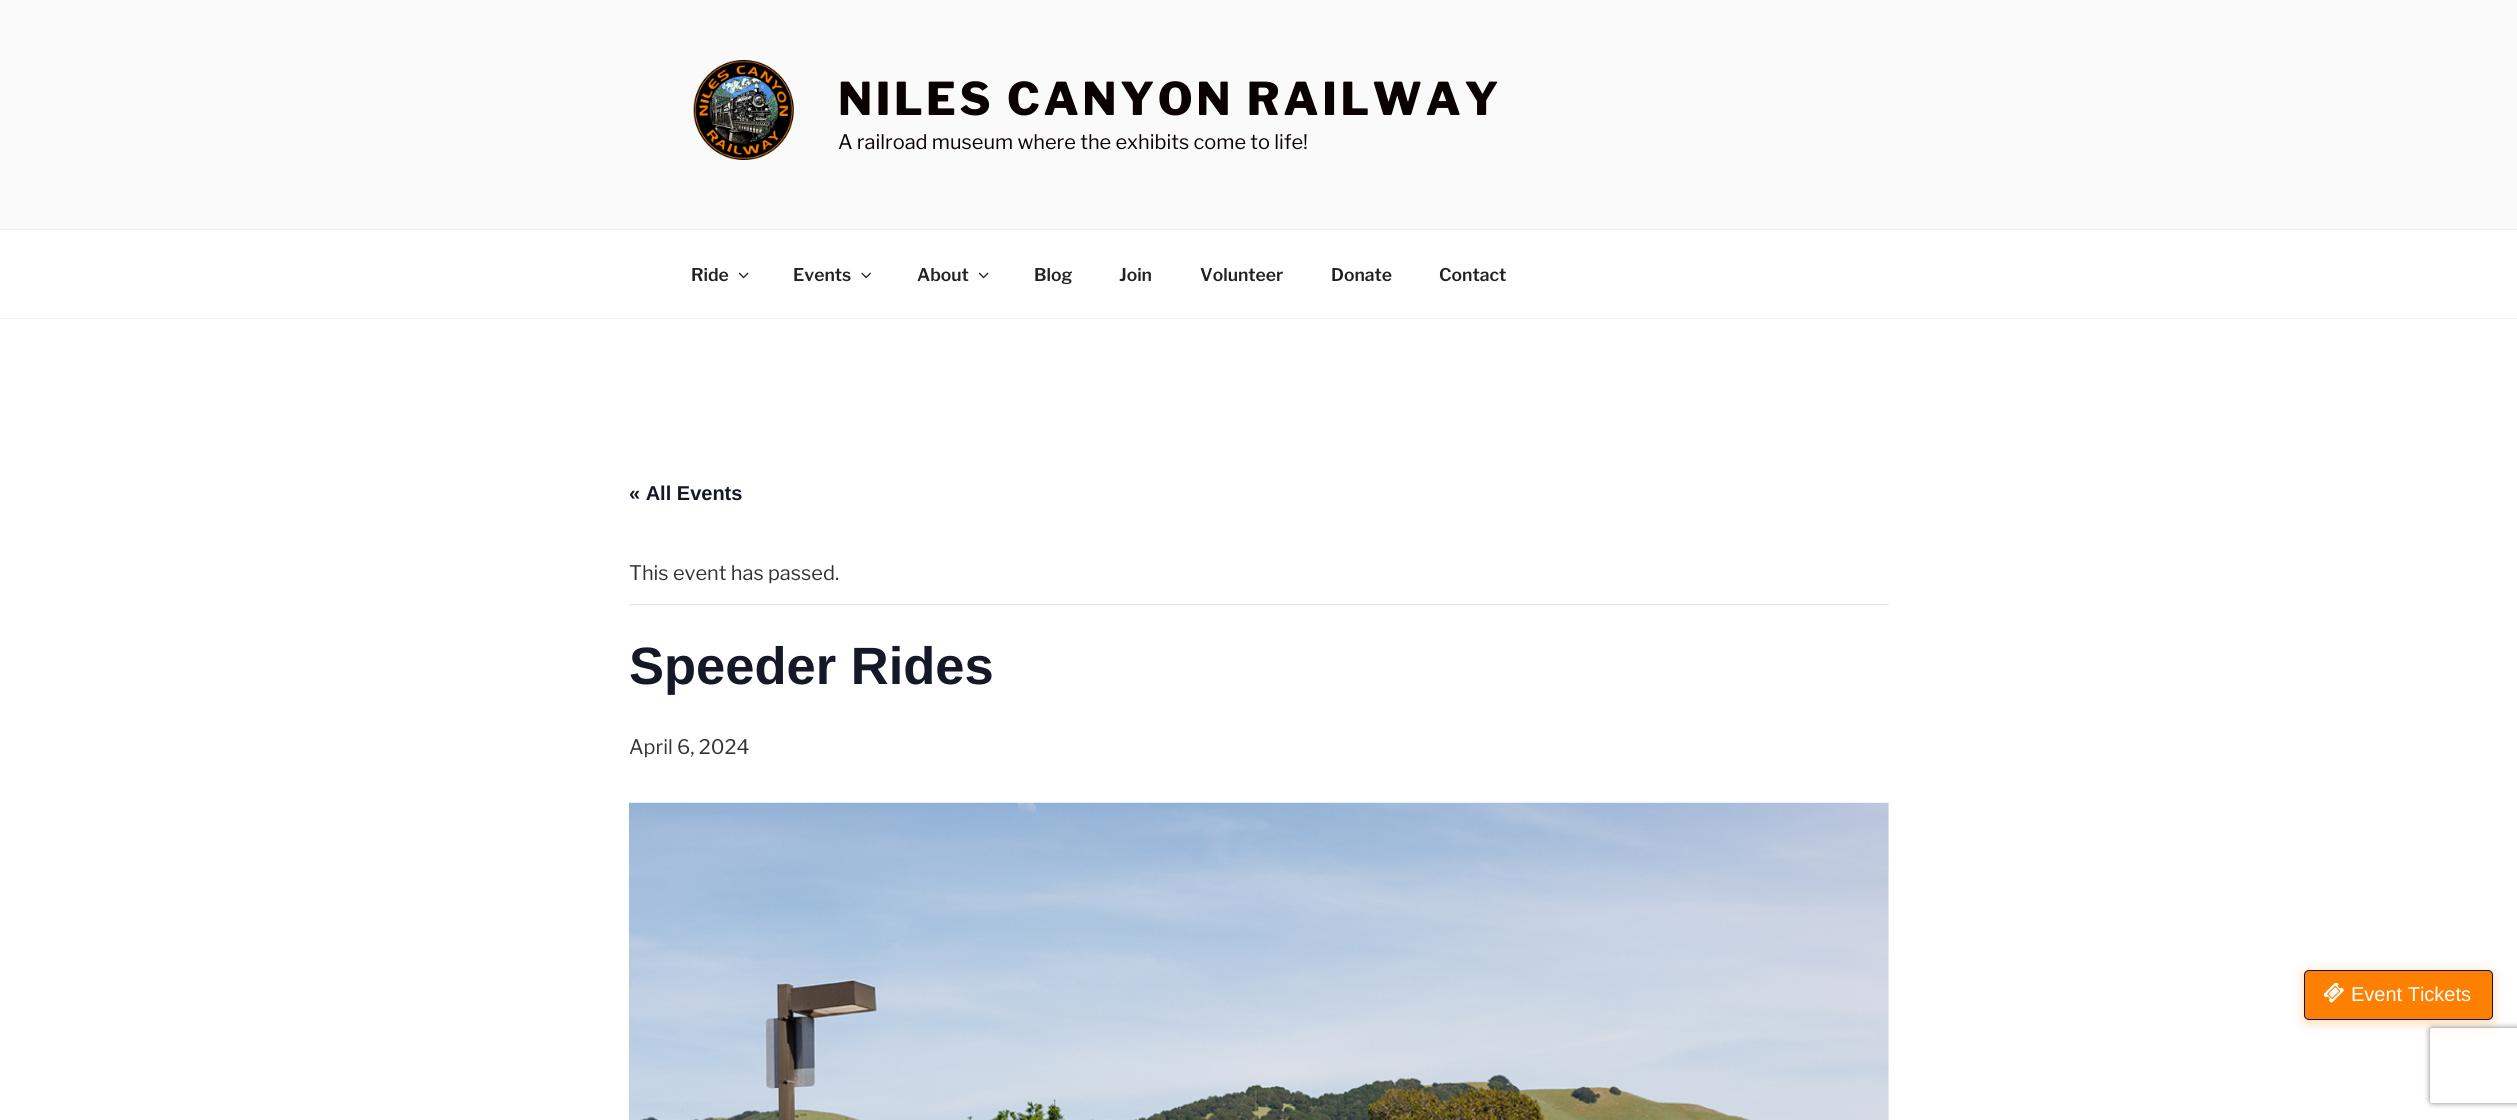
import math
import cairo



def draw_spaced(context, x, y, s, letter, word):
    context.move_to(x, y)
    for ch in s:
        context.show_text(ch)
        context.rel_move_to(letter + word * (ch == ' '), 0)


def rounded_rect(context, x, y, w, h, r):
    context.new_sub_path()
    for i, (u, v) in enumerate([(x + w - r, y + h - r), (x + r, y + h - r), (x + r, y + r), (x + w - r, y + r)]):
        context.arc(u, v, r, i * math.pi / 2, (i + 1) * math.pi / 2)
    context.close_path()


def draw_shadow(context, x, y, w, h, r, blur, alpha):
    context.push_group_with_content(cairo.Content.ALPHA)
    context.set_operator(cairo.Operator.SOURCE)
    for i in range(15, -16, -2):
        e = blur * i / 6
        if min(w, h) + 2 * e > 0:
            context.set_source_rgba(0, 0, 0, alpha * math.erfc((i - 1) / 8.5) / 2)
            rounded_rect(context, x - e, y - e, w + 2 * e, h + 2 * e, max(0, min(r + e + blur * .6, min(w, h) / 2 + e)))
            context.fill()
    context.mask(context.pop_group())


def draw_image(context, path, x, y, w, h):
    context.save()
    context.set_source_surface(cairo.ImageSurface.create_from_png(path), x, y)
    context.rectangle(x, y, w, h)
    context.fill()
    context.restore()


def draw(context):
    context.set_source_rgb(1, 1, 1)
    context.paint()
    context.set_source_rgb(250 / 255, 250 / 255, 250 / 255)
    context.rectangle(0, 0, 2517, 229)
    context.fill()
    draw_image(context, "images/1.png", 693, 60, 101, 100)
    context.set_source_rgb(238 / 255, 238 / 255, 238 / 255)
    context.rectangle(0, 229, 2517, 1)
    context.fill()
    context.rectangle(0, 318, 2517, 1)
    context.fill()
    draw_image(context, "images/2.png", 738, 272, 11, 7)
    draw_image(context, "images/3.png", 861, 272, 10, 7)
    draw_image(context, "images/2.png", 978, 272, 11, 7)
    context.set_source_rgb(228 / 255, 228 / 255, 228 / 255)
    context.rectangle(629, 604, 1260, 1)
    context.fill()
    draw_image(context, "images/4.png", 628, 802, 1261, 318)
    context.set_source_rgb(1, 127 / 255, 1 / 255)
    draw_shadow(context, 2304, 973, 189, 50, 5, 6, 0.3)
    context.save()
    context.set_fill_rule(cairo.FillRule.EVEN_ODD)
    context.new_path()
    context.move_to(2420, 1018)
    context.line_to(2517, 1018)
    context.line_to(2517, 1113)
    context.line_to(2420, 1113)
    context.close_path()
    context.move_to(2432.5, 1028)
    context.line_to(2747.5, 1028)
    context.curve_to(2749, 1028, 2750, 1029, 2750, 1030.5)
    context.line_to(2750, 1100.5)
    context.curve_to(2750, 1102, 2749, 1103, 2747.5, 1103)
    context.line_to(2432.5, 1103)
    context.curve_to(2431, 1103, 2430, 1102, 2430, 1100.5)
    context.line_to(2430, 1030.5)
    context.curve_to(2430, 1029, 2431, 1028, 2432.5, 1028)
    context.close_path()
    context.clip()
    context.set_source_rgb(128 / 255, 128 / 255, 128 / 255)
    draw_shadow(context, 2430, 1028, 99, 75, 2.5, 3, 1)
    context.restore()
    context.set_source_rgb(1, 127 / 255, 1 / 255)
    rounded_rect(context, 2304.5, 970.5, 188, 49, 4.5)
    context.fill_preserve()
    context.set_source_rgb(17 / 255, 19 / 255, 76 / 255)
    context.set_line_width(1)
    context.stroke()
    draw_image(context, "images/5.png", 2324, 983, 20, 20)
    context.select_font_face("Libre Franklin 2 Thin")
    context.set_font_size(45)
    context.set_source_rgb(10 / 255, 1 / 255, 1 / 255)
    draw_spaced(context, 838, 115, "NILES CANYON RAILWAY", 3.6, 0)
    context.select_font_face("Libre Franklin Thin")
    context.set_font_size(20)
    context.move_to(838, 149)
    context.show_text("A railroad museum where the exhibits come to life!")
    context.select_font_face("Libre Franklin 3 Thin")
    context.set_font_size(17.5)
    context.set_source_rgb(34 / 255, 34 / 255, 34 / 255)
    context.move_to(691, 281)
    context.show_text("Ride")
    context.move_to(793, 281)
    context.show_text("Events")
    context.move_to(917, 281)
    context.show_text("About")
    context.move_to(1034, 281)
    context.show_text("Blog")
    context.move_to(1119, 281)
    context.show_text("Join")
    context.move_to(1200, 281)
    context.show_text("Volunteer")
    context.move_to(1331, 281)
    context.show_text("Donate")
    context.move_to(1439, 281)
    context.show_text("Contact")
    context.select_font_face("Liberation Sans", cairo.FontSlant.NORMAL, cairo.FontWeight.BOLD)
    context.set_font_size(20)
    context.set_source_rgb(20 / 255, 24 / 255, 39 / 255)
    context.move_to(629, 500)
    context.show_text("« All Events")
    context.select_font_face("Libre Franklin Thin")
    context.set_source_rgb(51 / 255, 51 / 255, 51 / 255)
    context.move_to(629, 580)
    context.show_text("This event has passed.")
    context.select_font_face("Liberation Sans", cairo.FontSlant.NORMAL, cairo.FontWeight.BOLD)
    context.set_font_size(52.5)
    context.set_source_rgb(20 / 255, 24 / 255, 39 / 255)
    context.move_to(629, 684)
    context.show_text("Speeder Rides")
    context.select_font_face("Libre Franklin Thin")
    context.set_font_size(20)
    context.set_source_rgb(51 / 255, 51 / 255, 51 / 255)
    context.move_to(629, 754)
    context.show_text("April 6, 2024")
    context.select_font_face("Liberation Sans")
    context.set_source_rgb(1, 1, 1)
    context.move_to(2351, 1001)
    context.show_text("Event Tickets")


surface = cairo.ImageSurface(cairo.Format.RGB24, 2517, 1120)
context = cairo.Context(surface)
options = cairo.FontOptions()
options.set_hint_metrics(cairo.HintMetrics.OFF)
options.set_hint_style(cairo.HintStyle.NONE)
context.set_font_options(options)
context.set_miter_limit(4)
draw(context)
surface.write_to_png("out.png")
